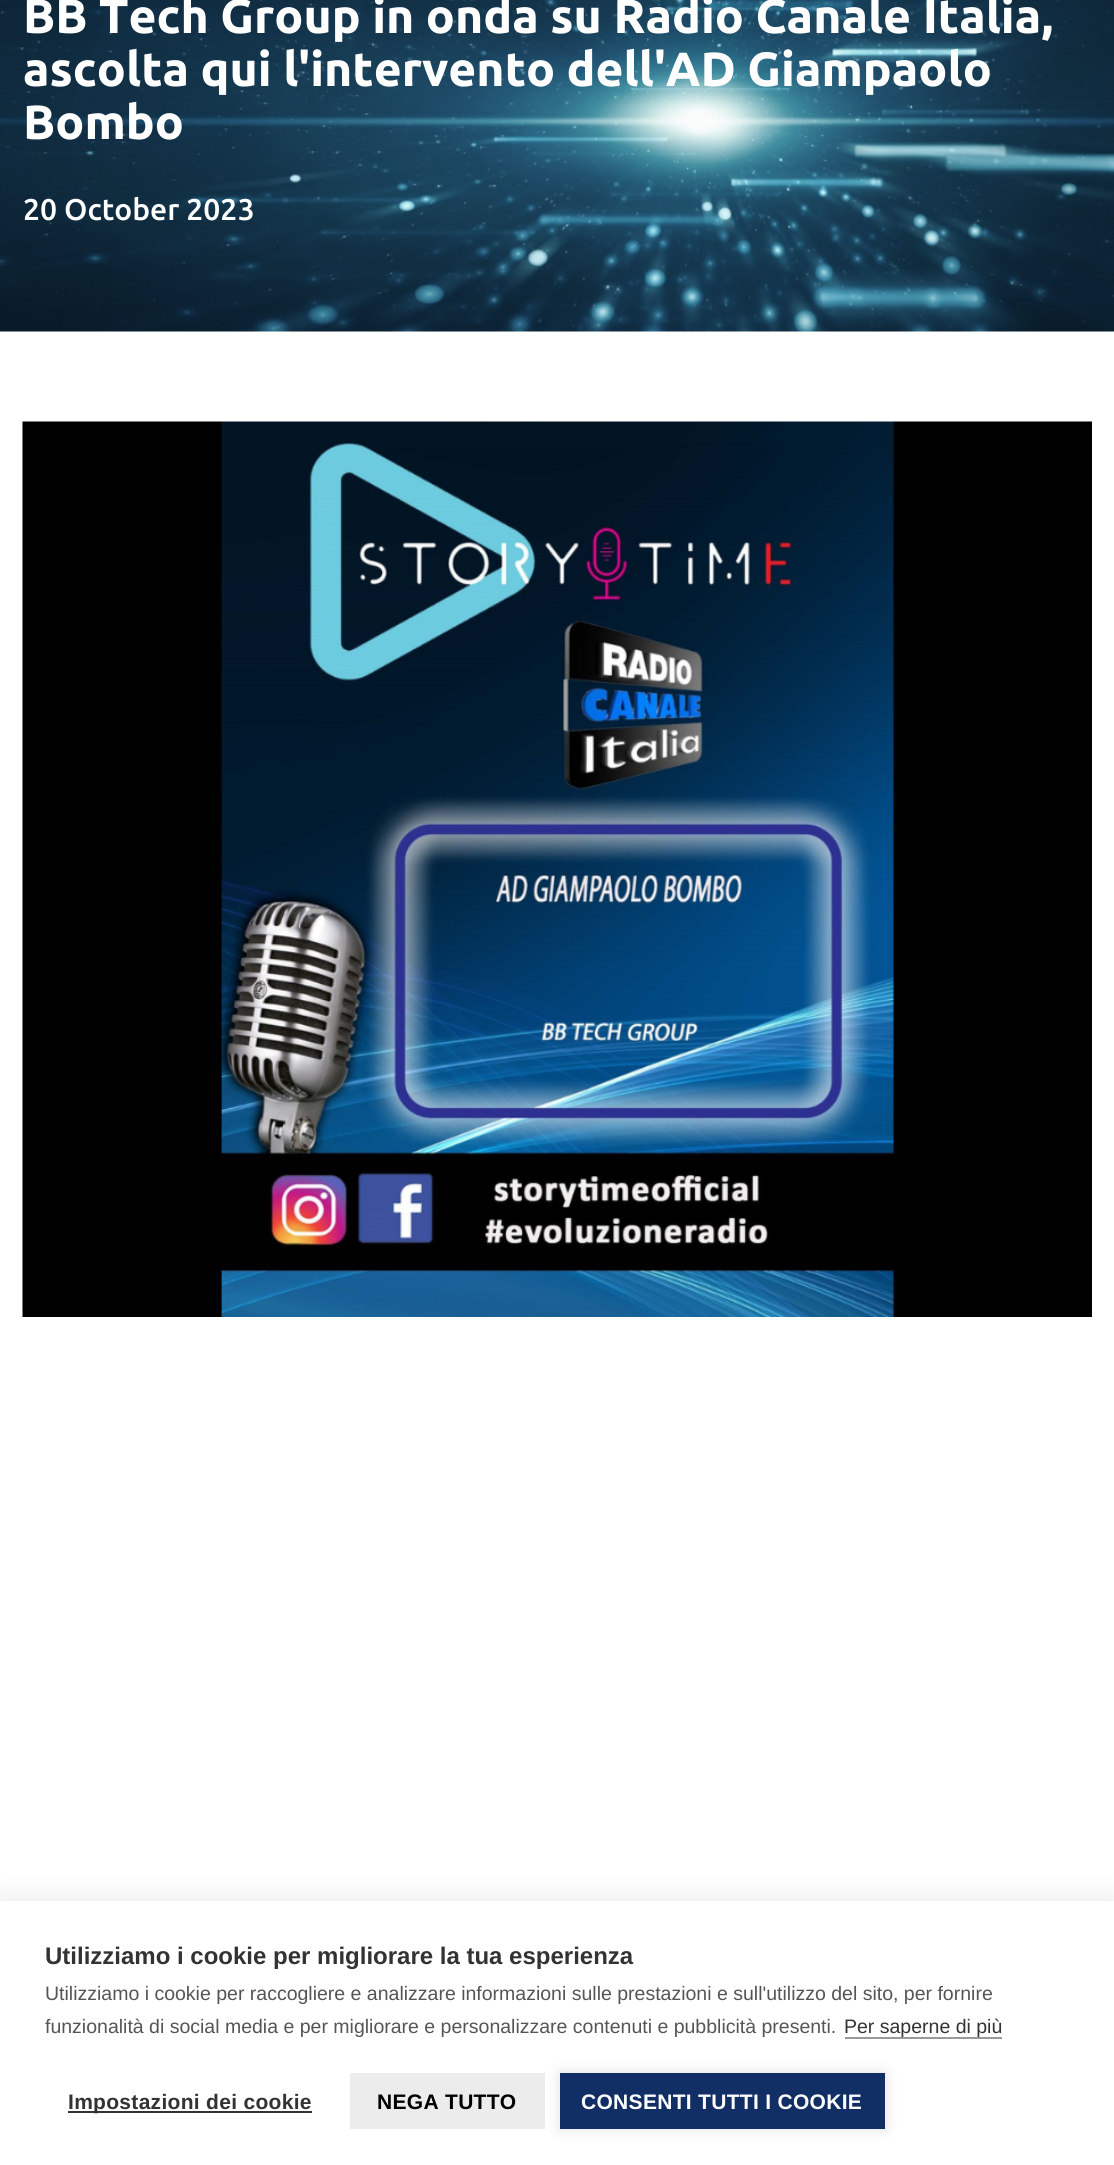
import math
import cairo



def draw_spaced(context, x, y, s, letter, word):
    context.move_to(x, y)
    for ch in s:
        context.show_text(ch)
        context.rel_move_to(letter + word * (ch == ' '), 0)


def rounded_rect(context, x, y, w, h, r):
    context.new_sub_path()
    for i, (u, v) in enumerate([(x + w - r, y + h - r), (x + r, y + h - r), (x + r, y + r), (x + w - r, y + r)]):
        context.arc(u, v, r, i * math.pi / 2, (i + 1) * math.pi / 2)
    context.close_path()


def draw_shadow(context, x, y, w, h, r, blur, alpha):
    context.push_group_with_content(cairo.Content.ALPHA)
    context.set_operator(cairo.Operator.SOURCE)
    for i in range(15, -16, -2):
        e = blur * i / 6
        if min(w, h) + 2 * e > 0:
            context.set_source_rgba(0, 0, 0, alpha * math.erfc((i - 1) / 8.5) / 2)
            rounded_rect(context, x - e, y - e, w + 2 * e, h + 2 * e, max(0, min(r + e + blur * .6, min(w, h) / 2 + e)))
            context.fill()
    context.mask(context.pop_group())


def draw_image(context, path, x, y, w, h):
    context.save()
    context.set_source_surface(cairo.ImageSurface.create_from_png(path), x, y)
    context.rectangle(x, y, w, h)
    context.fill()
    context.restore()


def draw(context):
    context.set_source_rgb(1, 1, 1)
    context.paint()
    draw_image(context, "images/1.png", 0, 0, 1114, 332)
    draw_image(context, "images/2.png", 22, 421, 1070, 896)
    context.set_source_rgb(0, 0, 0)
    draw_shadow(context, 0, 1901, 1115, 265, 0, 15, 0.1)
    context.set_source_rgb(1, 1, 1)
    context.rectangle(0, 1901, 1114, 264)
    context.fill()
    context.set_source_rgb(153 / 255, 153 / 255, 153 / 255)
    context.rectangle(845, 2037, 157, 2)
    context.fill()
    context.set_source_rgb(51 / 255, 51 / 255, 51 / 255)
    context.rectangle(68, 2111, 244, 2)
    context.fill()
    context.set_source_rgb(236 / 255, 236 / 255, 236 / 255)
    context.rectangle(350, 2073, 195, 56)
    context.fill()
    context.set_source_rgb(0, 0, 0)
    draw_shadow(context, 560, 2073, 325, 56, 0, 7.5, 0.12)
    context.set_source_rgb(17 / 255, 46 / 255, 101 / 255)
    context.rectangle(560, 2073, 325, 56)
    context.fill()
    context.select_font_face("Ubuntu", cairo.FontSlant.NORMAL, cairo.FontWeight.BOLD)
    context.set_font_size(48)
    context.set_source_rgb(1, 1, 1)
    context.move_to(23, 33)
    context.show_text("BB Tech Group in onda su Radio Canale Italia,")
    context.move_to(23, 86)
    context.show_text("ascolta qui l'intervento dell'AD Giampaolo")
    context.move_to(23, 139)
    context.show_text("Bombo")
    context.select_font_face("Ubuntu Medium")
    context.set_font_size(30)
    context.move_to(23, 220)
    context.show_text("20 October 2023")
    context.select_font_face("Liberation Sans", cairo.FontSlant.NORMAL, cairo.FontWeight.BOLD)
    context.set_font_size(24)
    context.set_source_rgb(51 / 255, 51 / 255, 51 / 255)
    context.move_to(45, 1964)
    context.show_text("Utilizziamo i cookie per migliorare la tua esperienza")
    context.select_font_face("Liberation Sans")
    context.set_font_size(19.5)
    context.set_source_rgb(85 / 255, 85 / 255, 85 / 255)
    context.move_to(45, 2000)
    context.show_text("Utilizziamo i cookie per raccogliere e analizzare informazioni sulle prestazioni e sull'utilizzo del sito, per fornire")
    context.move_to(45, 2033)
    context.show_text("funzionalità di social media e per migliorare e personalizzare contenuti e pubblicità presenti.")
    context.set_source_rgb(51 / 255, 51 / 255, 51 / 255)
    context.move_to(844, 2033)
    context.show_text("Per saperne di più")
    context.select_font_face("Liberation Sans", cairo.FontSlant.NORMAL, cairo.FontWeight.BOLD)
    context.set_font_size(21)
    draw_spaced(context, 68, 2109, "Impostazioni dei cookie", 0.3, 0)
    context.set_source_rgb(0, 0, 0)
    draw_spaced(context, 377, 2109, "NEGA TUTTO", 0.3, 0)
    context.set_source_rgb(1, 1, 1)
    draw_spaced(context, 581, 2109, "CONSENTI TUTTI I COOKIE", 0.3, 0)


surface = cairo.ImageSurface(cairo.Format.RGB24, 1114, 2165)
context = cairo.Context(surface)
options = cairo.FontOptions()
options.set_hint_metrics(cairo.HintMetrics.OFF)
options.set_hint_style(cairo.HintStyle.NONE)
context.set_font_options(options)
context.set_miter_limit(4)
draw(context)
surface.write_to_png("out.png")
